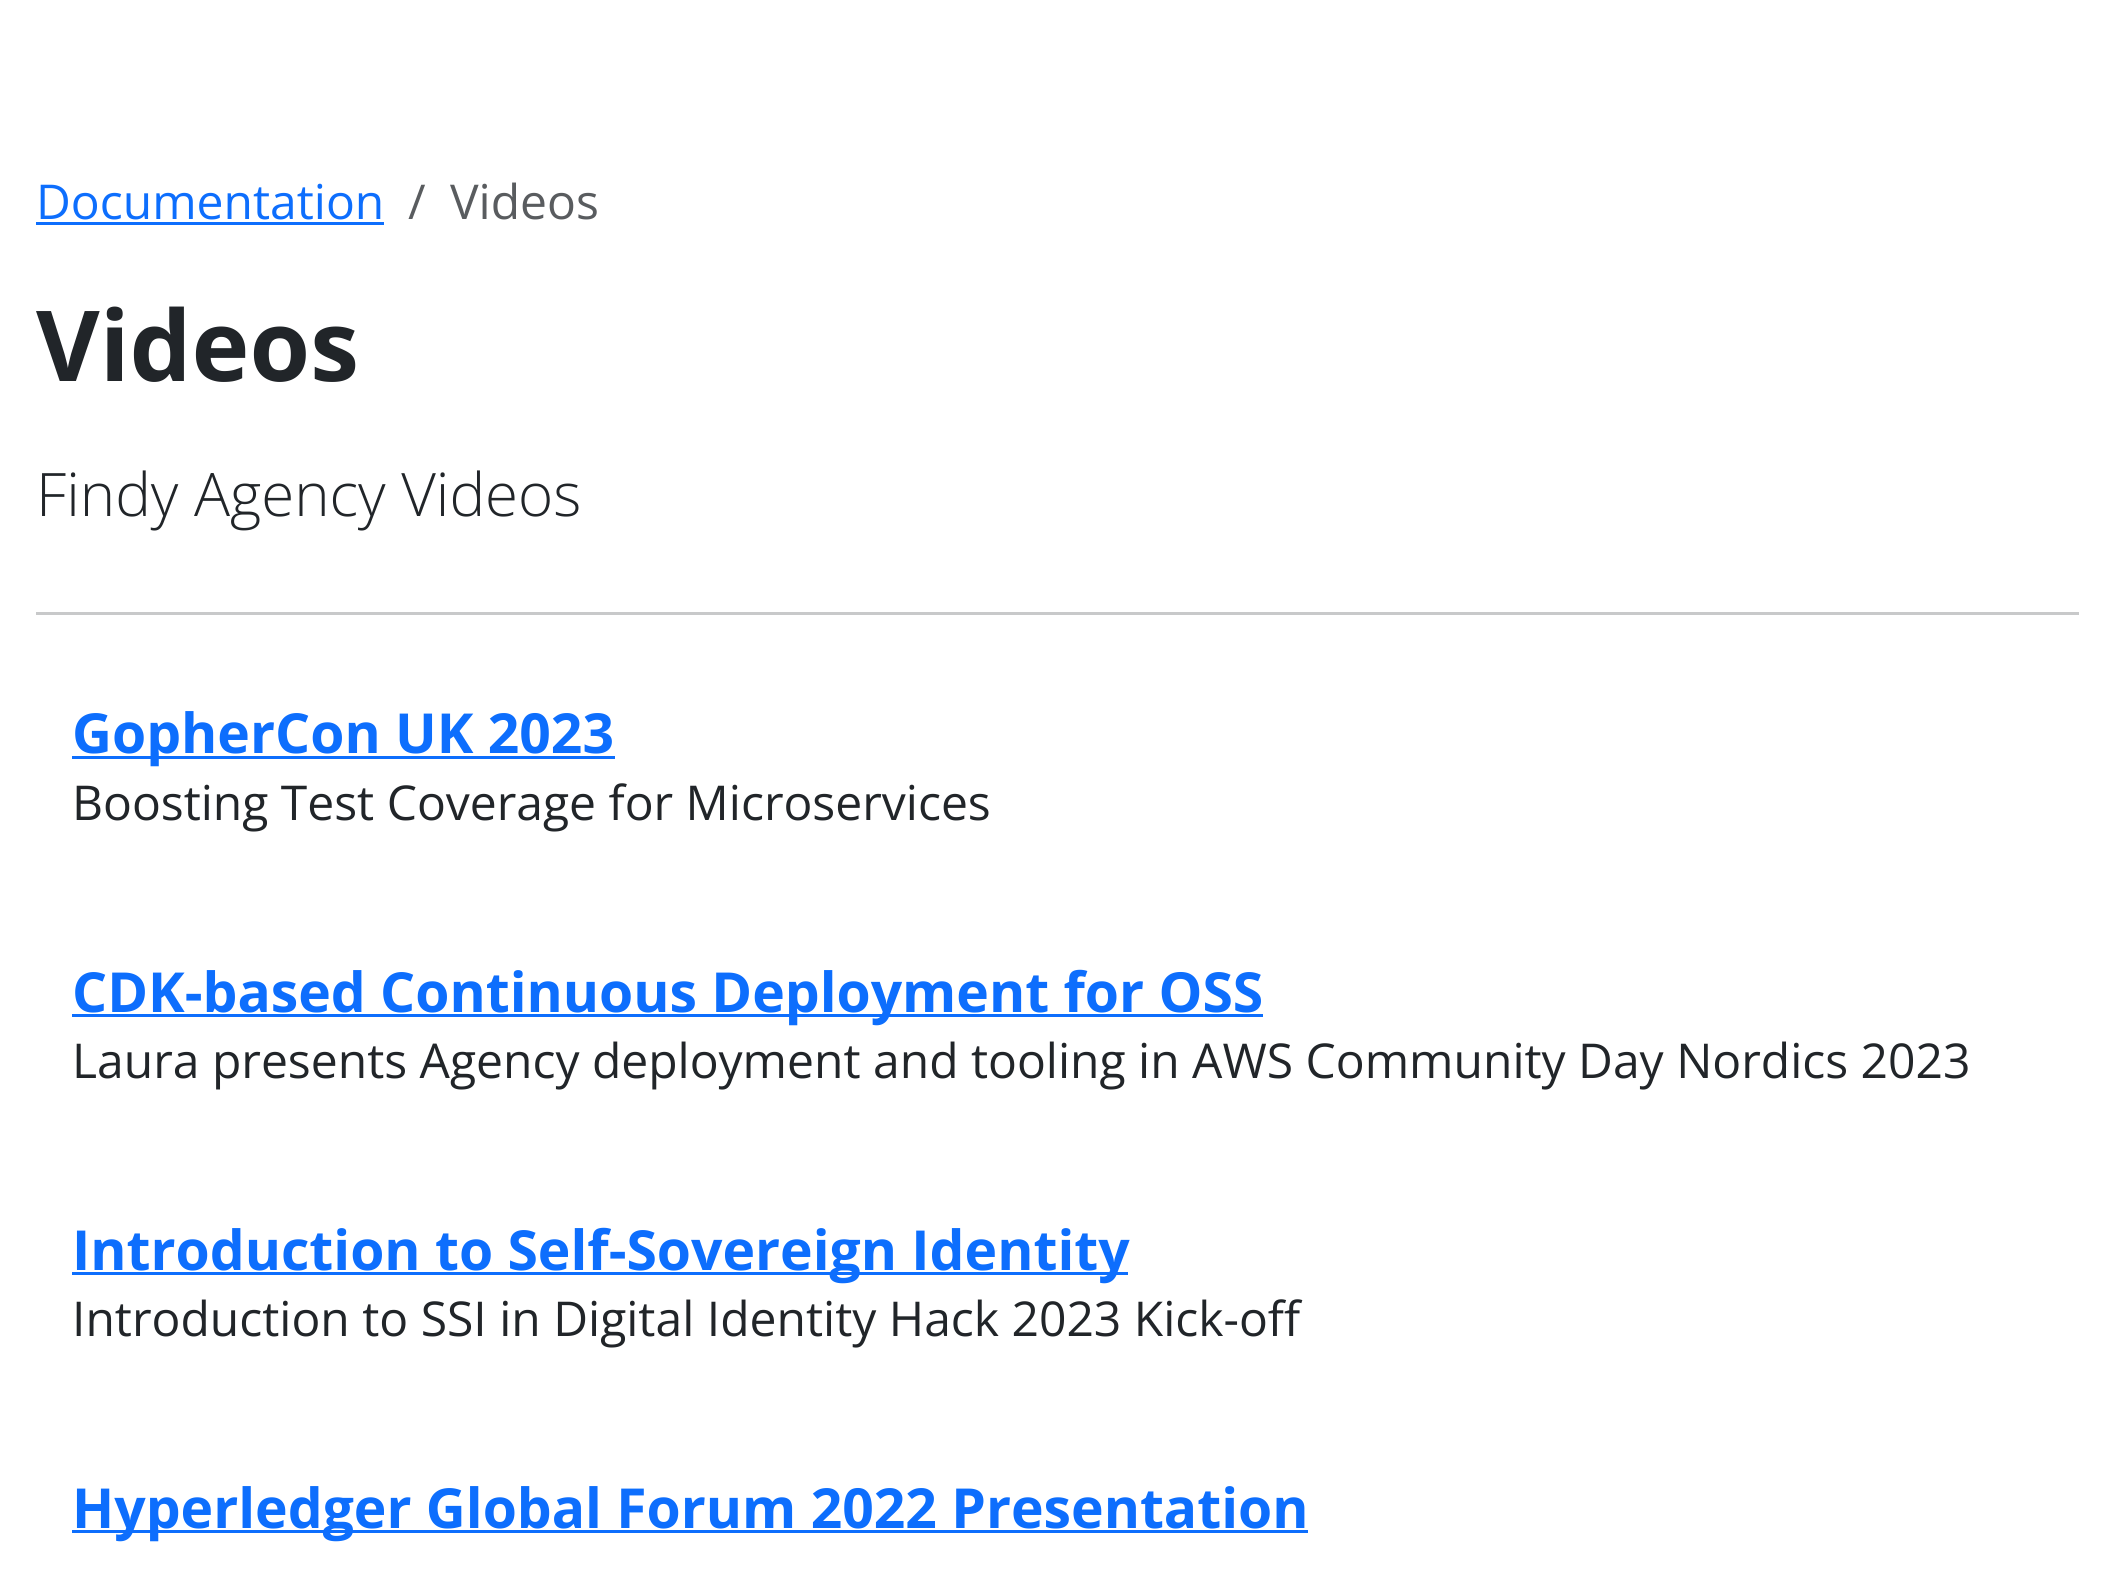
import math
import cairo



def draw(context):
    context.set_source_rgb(1, 1, 1)
    context.paint()
    context.set_source_rgb(13 / 255, 110 / 255, 253 / 255)
    context.rectangle(36, 222, 348, 3)
    context.fill()
    context.set_source_rgb(200 / 255, 201 / 255, 202 / 255)
    context.rectangle(36, 612, 2043, 3)
    context.fill()
    context.set_source_rgb(13 / 255, 110 / 255, 253 / 255)
    context.rectangle(72, 756, 543, 3)
    context.fill()
    context.rectangle(72, 1014, 1191, 3)
    context.fill()
    context.rectangle(72, 1272, 1056, 3)
    context.fill()
    context.rectangle(72, 1530, 1236, 3)
    context.fill()
    context.select_font_face("Open Sans")
    context.set_font_size(48)
    context.move_to(36, 219)
    context.show_text("Documentation")
    context.set_source_rgb(89 / 255, 92 / 255, 95 / 255)
    context.move_to(408, 219)
    context.show_text("/")
    context.move_to(450, 219)
    context.show_text("Videos")
    context.select_font_face("Open Sans", cairo.FontSlant.NORMAL, cairo.FontWeight.BOLD)
    context.set_font_size(98)
    context.set_source_rgb(33 / 255, 37 / 255, 41 / 255)
    context.move_to(36, 381)
    context.show_text("Videos")
    context.select_font_face("Open Sans Light")
    context.set_font_size(60)
    context.move_to(36, 516)
    context.show_text("Findy Agency Videos")
    context.select_font_face("Open Sans", cairo.FontSlant.NORMAL, cairo.FontWeight.BOLD)
    context.set_font_size(55.2)
    context.set_source_rgb(13 / 255, 110 / 255, 253 / 255)
    context.move_to(72, 753)
    context.show_text("GopherCon UK 2023")
    context.select_font_face("Open Sans")
    context.set_font_size(48)
    context.set_source_rgb(33 / 255, 37 / 255, 41 / 255)
    context.move_to(72, 820)
    context.show_text("Boosting Test Coverage for Microservices")
    context.select_font_face("Open Sans", cairo.FontSlant.NORMAL, cairo.FontWeight.BOLD)
    context.set_font_size(55.2)
    context.set_source_rgb(13 / 255, 110 / 255, 253 / 255)
    context.move_to(72, 1012)
    context.show_text("CDK-based Continuous Deployment for OSS")
    context.select_font_face("Open Sans")
    context.set_font_size(48)
    context.set_source_rgb(33 / 255, 37 / 255, 41 / 255)
    context.move_to(72, 1078)
    context.show_text("Laura presents Agency deployment and tooling in AWS Community Day Nordics 2023")
    context.select_font_face("Open Sans", cairo.FontSlant.NORMAL, cairo.FontWeight.BOLD)
    context.set_font_size(55.2)
    context.set_source_rgb(13 / 255, 110 / 255, 253 / 255)
    context.move_to(72, 1270)
    context.show_text("Introduction to Self-Sovereign Identity")
    context.select_font_face("Open Sans")
    context.set_font_size(48)
    context.set_source_rgb(33 / 255, 37 / 255, 41 / 255)
    context.move_to(72, 1336)
    context.show_text("Introduction to SSI in Digital Identity Hack 2023 Kick-off")
    context.select_font_face("Open Sans", cairo.FontSlant.NORMAL, cairo.FontWeight.BOLD)
    context.set_font_size(55.2)
    context.set_source_rgb(13 / 255, 110 / 255, 253 / 255)
    context.move_to(72, 1528)
    context.show_text("Hyperledger Global Forum 2022 Presentation")


surface = cairo.ImageSurface(cairo.Format.RGB24, 2113, 1576)
context = cairo.Context(surface)
options = cairo.FontOptions()
options.set_hint_metrics(cairo.HintMetrics.OFF)
options.set_hint_style(cairo.HintStyle.NONE)
context.set_font_options(options)
context.set_miter_limit(4)
draw(context)
surface.write_to_png("out.png")
